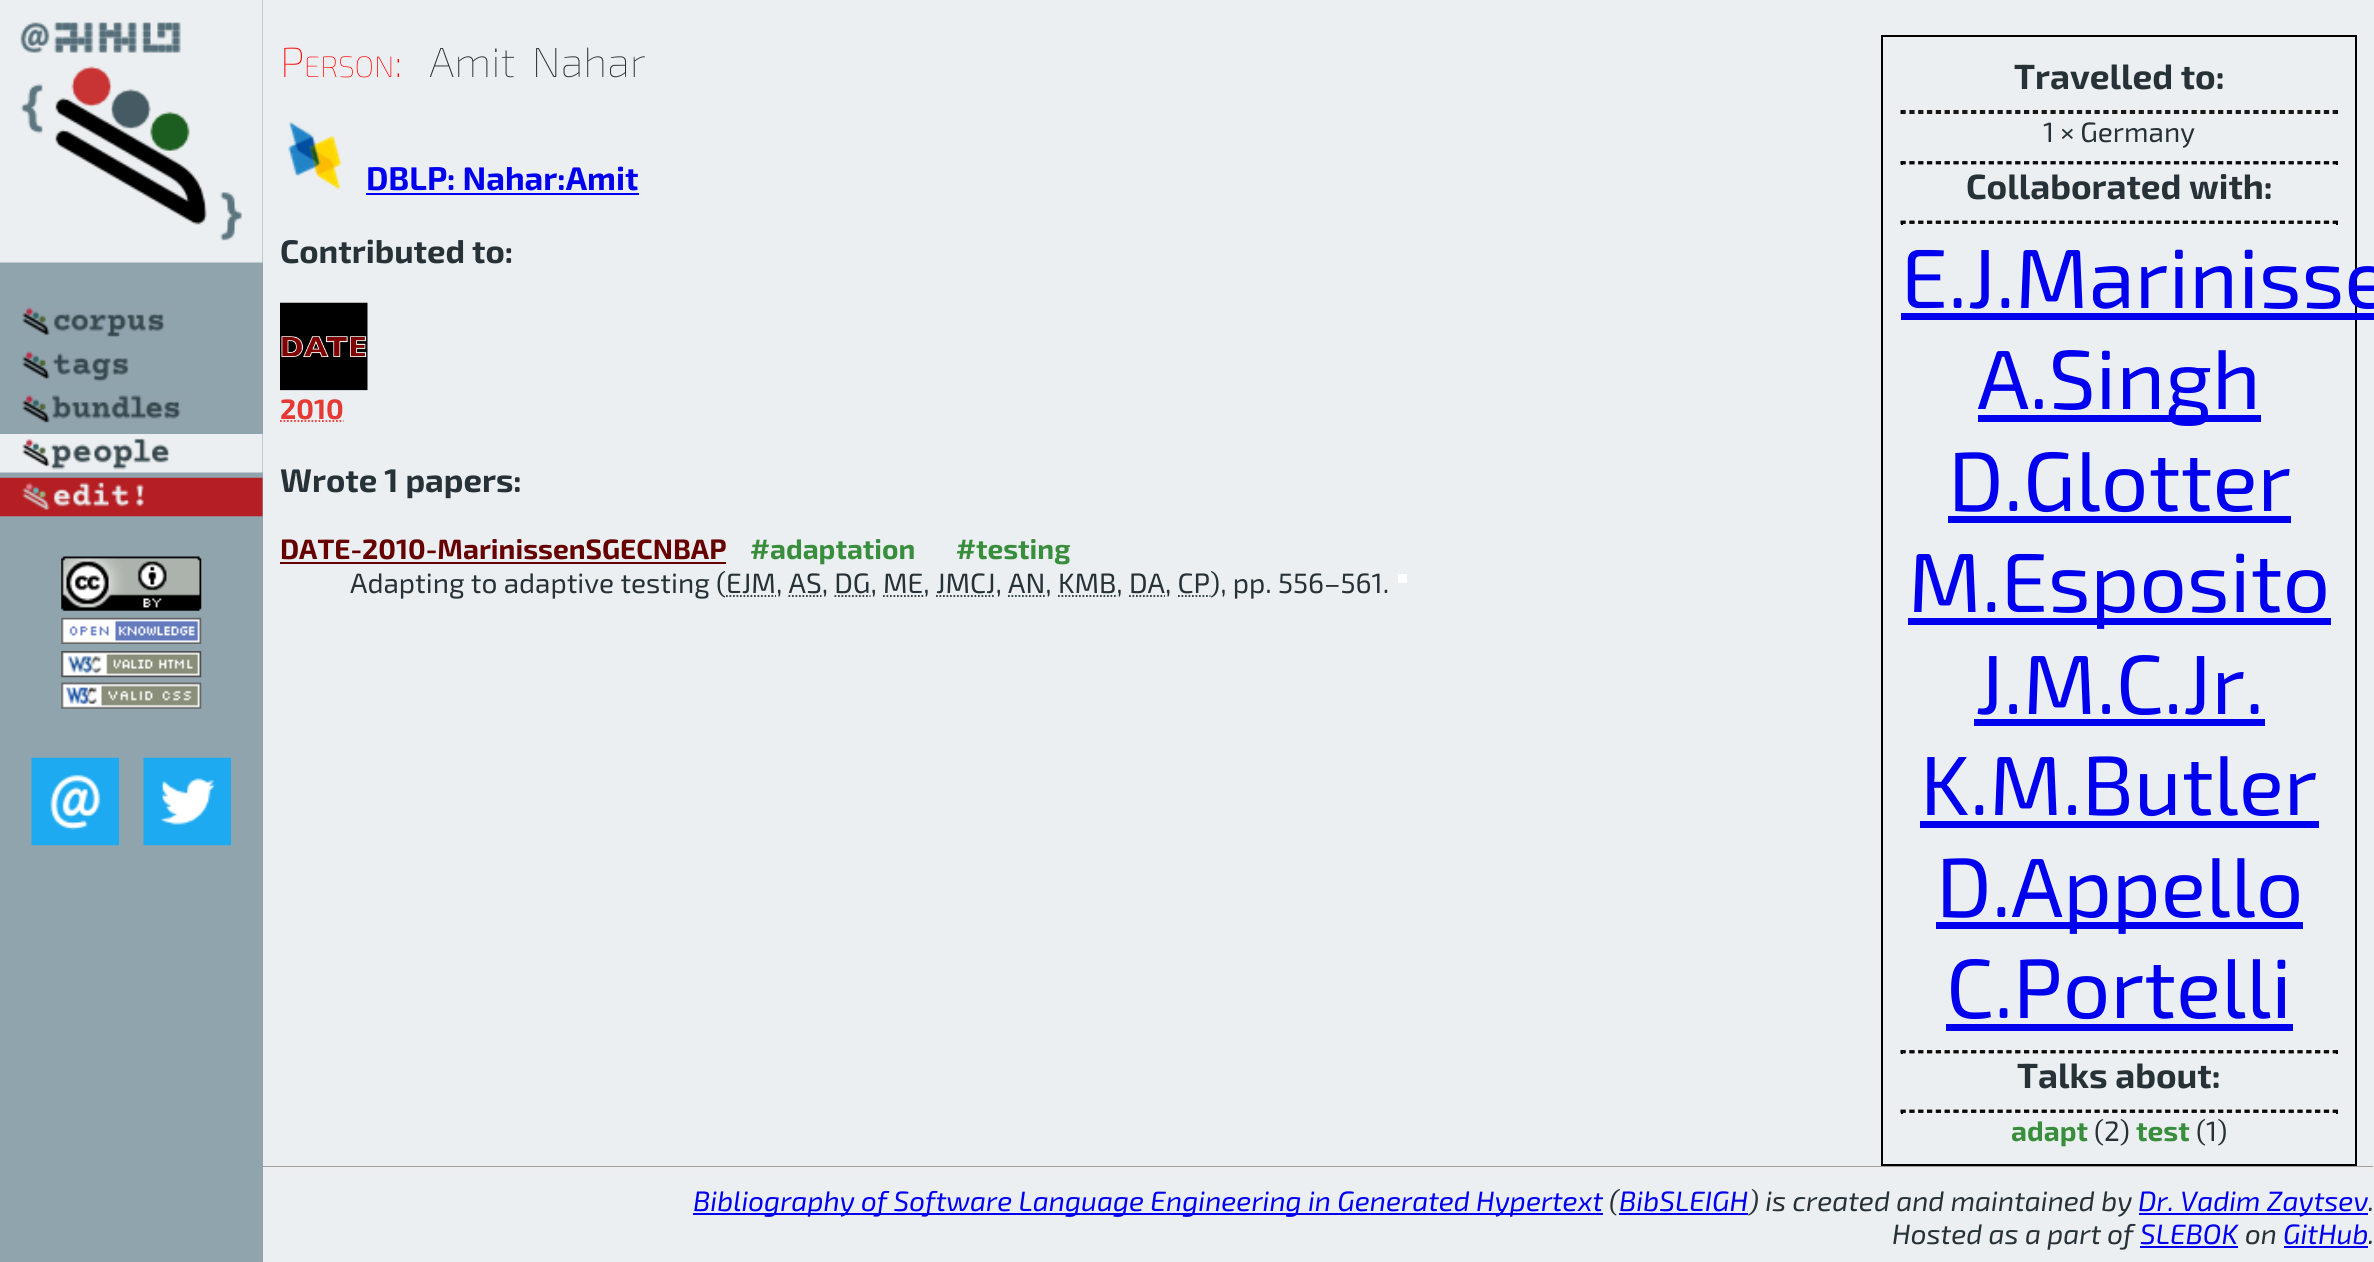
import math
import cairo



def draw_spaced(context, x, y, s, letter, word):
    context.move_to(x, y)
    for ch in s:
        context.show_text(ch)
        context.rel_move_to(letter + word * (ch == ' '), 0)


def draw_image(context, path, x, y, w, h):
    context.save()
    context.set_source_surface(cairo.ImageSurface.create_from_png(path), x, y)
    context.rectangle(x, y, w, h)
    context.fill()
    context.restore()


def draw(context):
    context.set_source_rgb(236 / 255, 239 / 255, 241 / 255)
    context.paint()
    context.set_source_rgb(144 / 255, 164 / 255, 174 / 255)
    context.rectangle(0, 0, 263, 1262)
    context.fill()
    draw_image(context, "images/1.png", 0, 0, 263, 263)
    draw_image(context, "images/2.png", 22, 307, 143, 30)
    draw_image(context, "images/3.png", 22, 351, 107, 31)
    draw_image(context, "images/4.png", 22, 395, 159, 29)
    draw_image(context, "images/5.png", 0, 434, 263, 39)
    draw_image(context, "images/6.png", 0, 477, 263, 40)
    draw_image(context, "images/7.png", 61, 556, 141, 55)
    draw_image(context, "images/8.png", 61, 617, 141, 27)
    draw_image(context, "images/9.png", 61, 651, 141, 27)
    draw_image(context, "images/10.png", 61, 682, 141, 27)
    draw_image(context, "images/11.png", 31, 757, 88, 89)
    draw_image(context, "images/12.png", 143, 757, 88, 89)
    context.rectangle(1882, 36, 474, 1129)
    context.set_source_rgb(0, 0, 0)
    context.stroke()
    context.new_path()
    context.move_to(1900.5, 111)
    context.line_to(2338, 111)
    context.set_line_width(1.8)
    context.set_dash([5.25, 3.57])
    context.stroke()
    context.rectangle(2336, 110, 2, 4)
    context.fill()
    context.new_path()
    context.move_to(1900.5, 113)
    context.line_to(2338, 113)
    context.stroke()
    context.rectangle(1901, 110, 2, 4)
    context.fill()
    context.new_path()
    context.move_to(1900.5, 162)
    context.line_to(2338, 162)
    context.stroke()
    context.rectangle(2336, 161, 2, 4)
    context.fill()
    context.new_path()
    context.move_to(1900.5, 163.5)
    context.line_to(2338, 163.5)
    context.stroke()
    context.rectangle(1901, 161, 2, 4)
    context.fill()
    context.new_path()
    context.move_to(1900.5, 221.5)
    context.line_to(2338, 221.5)
    context.stroke()
    context.rectangle(2336, 221, 2, 4)
    context.fill()
    context.new_path()
    context.move_to(1900.5, 223)
    context.line_to(2338, 223)
    context.stroke()
    context.rectangle(1901, 221, 2, 4)
    context.fill()
    context.set_source_rgb(0, 0, 238 / 255)
    context.rectangle(1901, 313, 473, 7)
    context.fill()
    context.rectangle(1978, 415, 283, 7)
    context.fill()
    context.rectangle(1948, 516, 343, 7)
    context.fill()
    context.rectangle(1908, 618, 423, 7)
    context.fill()
    context.rectangle(1974, 719, 291, 7)
    context.fill()
    context.rectangle(1920, 821, 399, 7)
    context.fill()
    context.rectangle(1936, 922, 367, 7)
    context.fill()
    context.rectangle(1946, 1024, 347, 7)
    context.fill()
    context.new_path()
    context.move_to(1900.5, 1051)
    context.line_to(2338, 1051)
    context.set_source_rgb(0, 0, 0)
    context.stroke()
    context.rectangle(2336, 1050, 2, 4)
    context.fill()
    context.new_path()
    context.move_to(1900.5, 1052.5)
    context.line_to(2338, 1052.5)
    context.stroke()
    context.rectangle(1901, 1050, 2, 4)
    context.fill()
    context.new_path()
    context.move_to(1900.5, 1110.5)
    context.line_to(2338, 1110.5)
    context.stroke()
    context.rectangle(2336, 1110, 2, 4)
    context.fill()
    context.new_path()
    context.move_to(1900.5, 1112)
    context.line_to(2338, 1112)
    context.stroke()
    context.rectangle(1901, 1110, 2, 4)
    context.fill()
    draw_image(context, "images/13.png", 288, 122, 54, 68)
    context.set_source_rgb(0, 0, 238 / 255)
    context.rectangle(366, 193, 273, 2)
    context.fill()
    draw_image(context, "images/14.png", 280, 302, 88, 89)
    context.new_path()
    context.move_to(280, 421)
    context.line_to(343.5, 421)
    context.set_source_rgb(229 / 255, 57 / 255, 53 / 255)
    context.set_dash([1.75, 1.75])
    context.stroke()
    context.set_source_rgb(102 / 255, 0, 0)
    context.rectangle(280, 562, 446, 2)
    context.fill()
    context.new_path()
    context.move_to(726, 596)
    context.line_to(776, 596)
    context.set_source_rgb(38 / 255, 50 / 255, 56 / 255)
    context.stroke()
    context.new_path()
    context.move_to(788.5, 596)
    context.line_to(821.5, 596)
    context.stroke()
    context.new_path()
    context.move_to(834.5, 596)
    context.line_to(870.5, 596)
    context.stroke()
    context.new_path()
    context.move_to(883, 596)
    context.line_to(923.5, 596)
    context.stroke()
    context.new_path()
    context.move_to(936, 596)
    context.line_to(995.5, 596)
    context.stroke()
    context.new_path()
    context.move_to(1008, 596)
    context.line_to(1045.5, 596)
    context.stroke()
    context.new_path()
    context.move_to(1058, 596)
    context.line_to(1116.5, 596)
    context.stroke()
    context.new_path()
    context.move_to(1129, 596)
    context.line_to(1165, 596)
    context.stroke()
    context.new_path()
    context.move_to(1178, 596)
    context.line_to(1210.5, 596)
    context.stroke()
    context.set_source_rgb(1, 1, 1)
    context.rectangle(1398, 574, 9, 9)
    context.fill()
    context.set_source_rgb(159 / 255, 159 / 255, 159 / 255)
    context.rectangle(263, 1166, 2111, 1)
    context.fill()
    context.set_source_rgb(238 / 255, 238 / 255, 238 / 255)
    context.rectangle(2373, 1166, 1, 4)
    context.fill()
    context.rectangle(263, 1167, 2111, 2)
    context.fill()
    context.set_source_rgb(0, 0, 238 / 255)
    context.rectangle(693, 1213, 910, 2)
    context.fill()
    context.rectangle(2139, 1213, 229, 2)
    context.fill()
    context.rectangle(2140, 1246, 98, 2)
    context.fill()
    context.rectangle(2284, 1246, 84, 2)
    context.fill()
    context.select_font_face("Exo 2 Thin")
    context.set_font_size(42)
    context.set_source_rgb(1, 0, 0)
    context.move_to(280, 77)
    context.show_text("P")
    context.set_font_size(29.5)
    context.move_to(304, 77)
    context.show_text("ERSON")
    context.set_font_size(42)
    context.move_to(394, 77)
    context.show_text(":")
    context.set_source_rgb(38 / 255, 50 / 255, 56 / 255)
    draw_spaced(context, 429, 77, "Amit Nahar", 0, 7)
    context.select_font_face("Exo 2", cairo.FontSlant.NORMAL, cairo.FontWeight.BOLD)
    context.set_font_size(35)
    context.move_to(2014, 89)
    context.show_text("Travelled to:")
    context.select_font_face("Exo 2")
    context.set_font_size(28)
    context.move_to(2043, 142)
    context.show_text("1 × Germany")
    context.select_font_face("Exo 2", cairo.FontSlant.NORMAL, cairo.FontWeight.BOLD)
    context.set_font_size(35)
    context.move_to(1966, 199)
    context.show_text("Collaborated with:")
    context.select_font_face("Exo 2")
    context.set_font_size(84)
    context.set_source_rgb(0, 0, 238 / 255)
    context.move_to(1901, 308)
    context.show_text("E.J.Marinisse")
    context.move_to(1977, 409)
    context.show_text("A.Singh")
    context.move_to(1948, 511)
    context.show_text("D.Glotter")
    context.move_to(1908, 612)
    context.show_text("M.Esposito")
    context.move_to(1975, 714)
    context.show_text("J.M.C.Jr.")
    context.move_to(1920, 815)
    context.show_text("K.M.Butler")
    context.move_to(1936, 917)
    context.show_text("D.Appello")
    context.move_to(1946, 1018)
    context.show_text("C.Portelli")
    context.select_font_face("Exo 2", cairo.FontSlant.NORMAL, cairo.FontWeight.BOLD)
    context.set_font_size(35)
    context.set_source_rgb(38 / 255, 50 / 255, 56 / 255)
    context.move_to(2017, 1088)
    context.show_text("Talks about:")
    context.set_font_size(28)
    context.set_source_rgb(56 / 255, 142 / 255, 60 / 255)
    context.move_to(2011, 1141)
    context.show_text("adapt")
    context.select_font_face("Exo 2")
    context.set_source_rgb(38 / 255, 50 / 255, 56 / 255)
    context.move_to(2094, 1141)
    context.show_text("(2)")
    context.select_font_face("Exo 2", cairo.FontSlant.NORMAL, cairo.FontWeight.BOLD)
    context.set_source_rgb(56 / 255, 142 / 255, 60 / 255)
    context.move_to(2136, 1141)
    context.show_text("test")
    context.select_font_face("Exo 2")
    context.set_source_rgb(38 / 255, 50 / 255, 56 / 255)
    context.move_to(2196, 1141)
    context.show_text("(1)")
    context.select_font_face("Exo 2", cairo.FontSlant.NORMAL, cairo.FontWeight.BOLD)
    context.set_font_size(32.75)
    context.set_source_rgb(0, 0, 238 / 255)
    context.move_to(366, 190)
    context.show_text("DBLP: Nahar:Amit")
    context.set_source_rgb(38 / 255, 50 / 255, 56 / 255)
    context.move_to(280, 263)
    context.show_text("Contributed to:")
    context.set_font_size(28)
    context.set_source_rgb(229 / 255, 57 / 255, 53 / 255)
    context.move_to(280, 419)
    context.show_text("2010")
    context.set_font_size(32.75)
    context.set_source_rgb(38 / 255, 50 / 255, 56 / 255)
    context.move_to(280, 492)
    context.show_text("Wrote 1 papers:")
    context.set_font_size(28)
    context.set_source_rgb(102 / 255, 0, 0)
    context.move_to(280, 559)
    context.show_text("DATE-2010-MarinissenSGECNBAP")
    context.set_source_rgb(56 / 255, 142 / 255, 60 / 255)
    context.move_to(750, 559)
    context.show_text("#adaptation")
    context.move_to(956, 559)
    context.show_text("#testing")
    context.select_font_face("Exo 2")
    context.set_source_rgb(38 / 255, 50 / 255, 56 / 255)
    context.move_to(350, 593)
    context.show_text("Adapting to adaptive testing (EJM, AS, DG, ME, JMCJ, AN, KMB, DA, CP), pp. 556–561.")
    context.select_font_face("Exo 2", cairo.FontSlant.ITALIC)
    context.set_source_rgb(0, 0, 238 / 255)
    context.move_to(693, 1211)
    context.show_text("Bibliography of Software Language Engineering in Generated Hypertext")
    context.set_source_rgb(38 / 255, 50 / 255, 56 / 255)
    context.move_to(1609, 1211)
    context.show_text("(")
    context.set_source_rgb(0, 0, 238 / 255)
    context.move_to(1619, 1211)
    context.show_text("BibSLEIGH")
    context.rectangle(1619, 1213, 129, 2)
    context.fill()
    context.set_source_rgb(38 / 255, 50 / 255, 56 / 255)
    context.move_to(1749, 1211)
    context.show_text(") is created and maintained by")
    context.set_source_rgb(0, 0, 238 / 255)
    context.move_to(2138, 1211)
    context.show_text("Dr. Vadim Zaytsev")
    context.set_source_rgb(38 / 255, 50 / 255, 56 / 255)
    context.move_to(2368, 1211)
    context.show_text(".")
    context.move_to(1892, 1244)
    context.show_text("Hosted as a part of")
    context.set_source_rgb(0, 0, 238 / 255)
    context.move_to(2140, 1244)
    context.show_text("SLEBOK")
    context.set_source_rgb(38 / 255, 50 / 255, 56 / 255)
    context.move_to(2245, 1244)
    context.show_text("on")
    context.set_source_rgb(0, 0, 238 / 255)
    context.move_to(2283, 1244)
    context.show_text("GitHub")
    context.set_source_rgb(38 / 255, 50 / 255, 56 / 255)
    context.move_to(2368, 1244)
    context.show_text(".")


surface = cairo.ImageSurface(cairo.Format.RGB24, 2374, 1262)
context = cairo.Context(surface)
options = cairo.FontOptions()
options.set_hint_metrics(cairo.HintMetrics.OFF)
options.set_hint_style(cairo.HintStyle.NONE)
context.set_font_options(options)
context.set_miter_limit(4)
draw(context)
surface.write_to_png("out.png")
